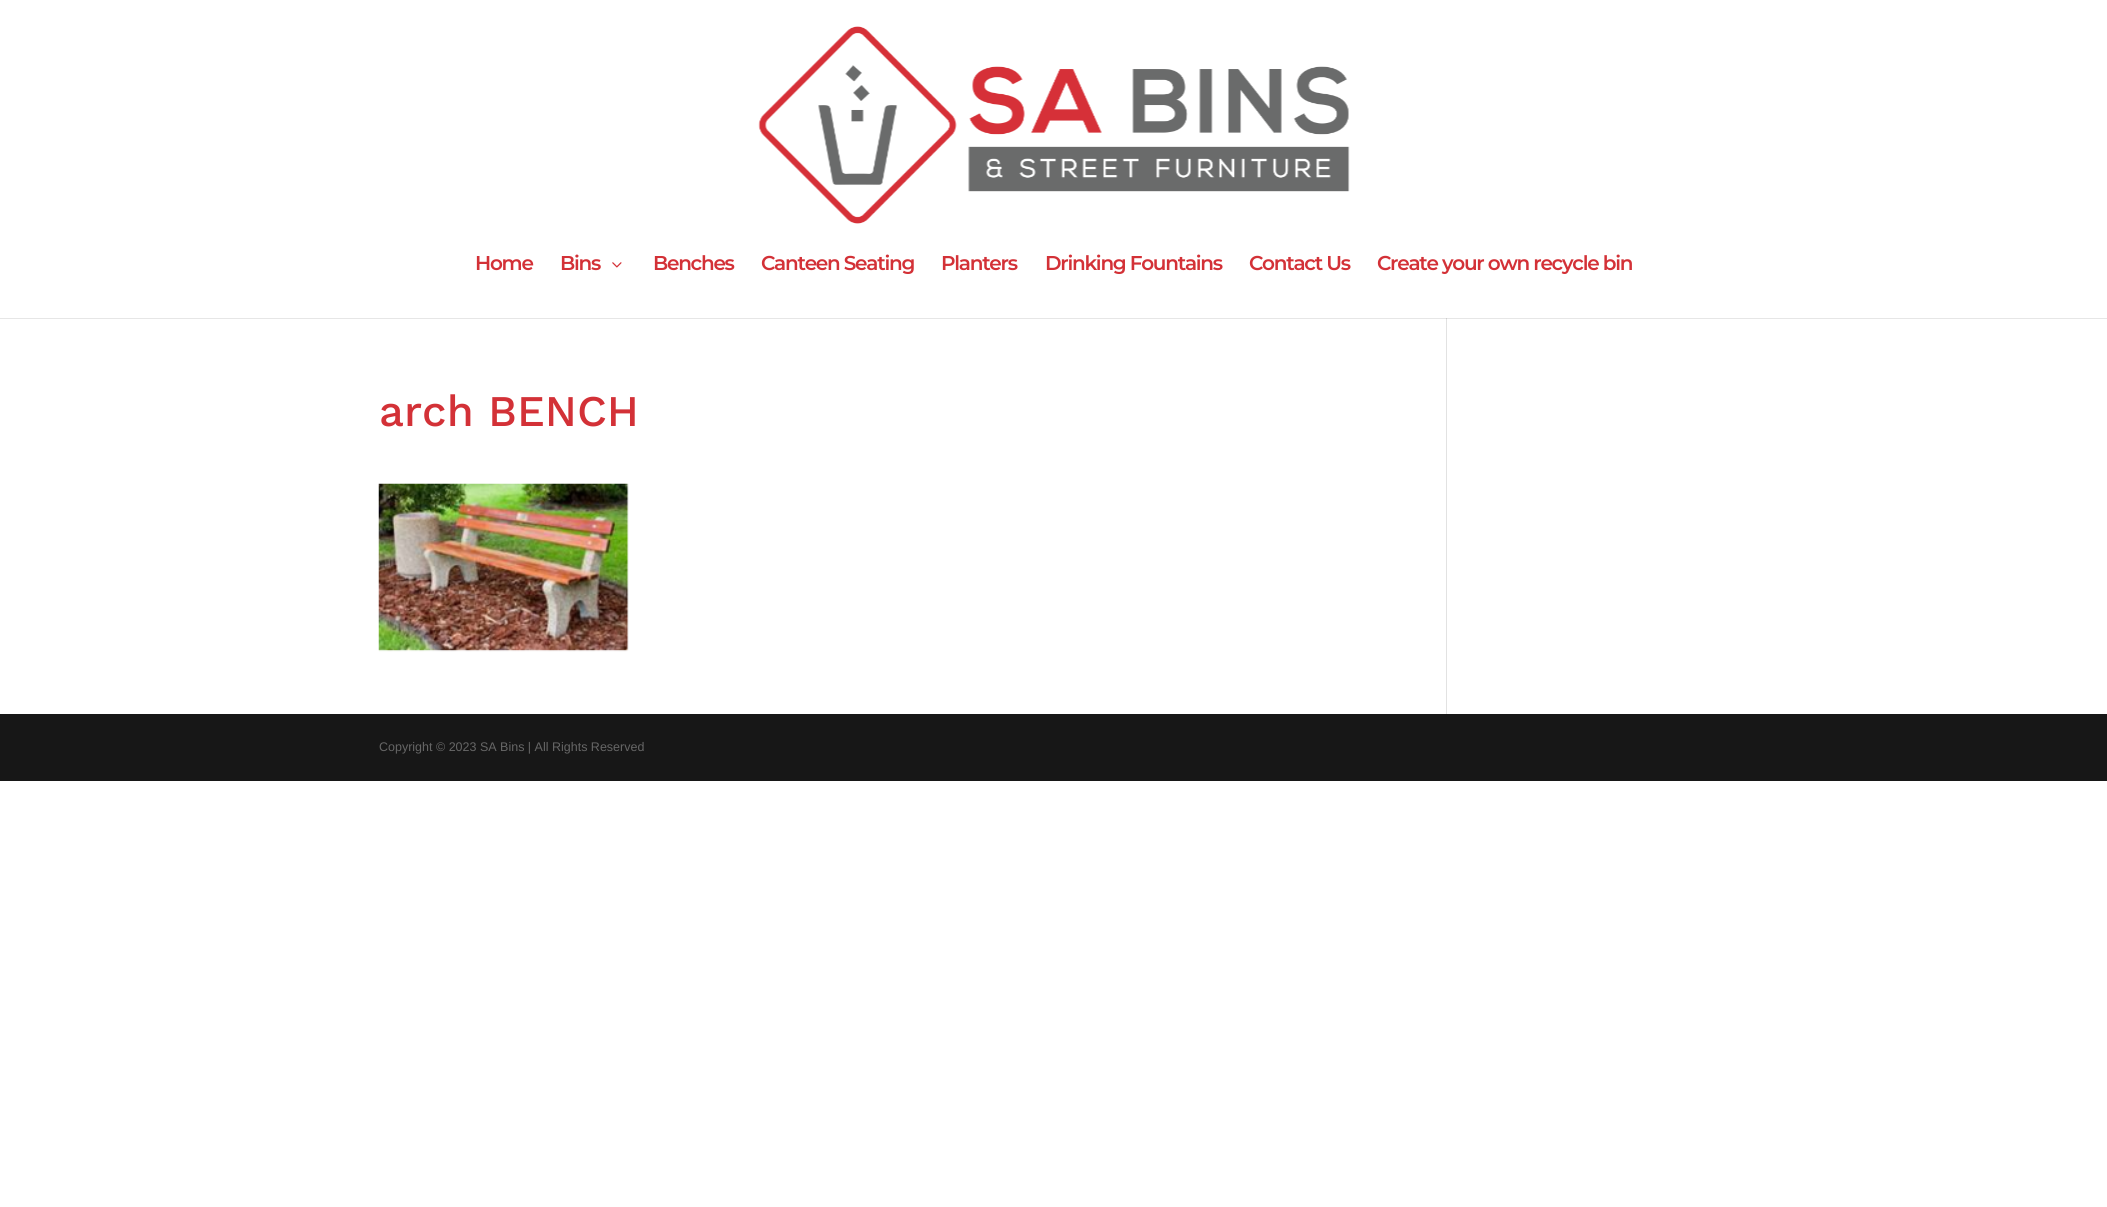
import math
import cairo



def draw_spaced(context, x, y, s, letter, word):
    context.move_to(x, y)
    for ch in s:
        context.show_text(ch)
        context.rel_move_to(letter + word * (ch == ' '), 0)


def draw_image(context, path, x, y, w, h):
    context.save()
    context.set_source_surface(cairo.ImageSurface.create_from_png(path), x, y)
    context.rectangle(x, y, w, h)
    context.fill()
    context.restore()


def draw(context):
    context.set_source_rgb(1, 1, 1)
    context.paint()
    context.set_source_rgb(226 / 255, 226 / 255, 226 / 255)
    context.rectangle(1446, 318, 1, 396)
    context.fill()
    context.set_source_rgba(0, 0, 0, 0.1)
    context.new_path()
    context.move_to(0, 318)
    context.line_to(0, 319)
    context.line_to(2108, 319)
    context.line_to(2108, 1)
    context.line_to(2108, 318)
    context.close_path()
    context.fill()
    draw_image(context, "images/1.png", 758, 26, 592, 198)
    draw_image(context, "images/2.png", 612, 262, 10, 6)
    draw_image(context, "images/3.png", 378, 483, 251, 169)
    context.set_source_rgb(23 / 255, 23 / 255, 23 / 255)
    context.rectangle(0, 714, 2107, 67)
    context.fill()
    context.select_font_face("Montserrat SemiBold")
    context.set_font_size(20)
    context.set_source_rgb(211 / 255, 49 / 255, 55 / 255)
    draw_spaced(context, 475, 270, "Home", -1.25, 0)
    draw_spaced(context, 560, 270, "Bins", -1.25, 0)
    draw_spaced(context, 653, 270, "Benches", -1.25, 0)
    draw_spaced(context, 761, 270, "Canteen Seating", -1.25, 0)
    draw_spaced(context, 941, 270, "Planters", -1.25, 0)
    draw_spaced(context, 1045, 270, "Drinking Fountains", -1.25, 0)
    draw_spaced(context, 1249, 270, "Contact Us", -1.25, 0)
    draw_spaced(context, 1377, 270, "Create your own recycle bin", -1.25, 0)
    context.select_font_face("Work Sans Medium")
    context.set_font_size(43.75)
    context.move_to(379, 426)
    context.show_text("arch BENCH")
    context.select_font_face("Liberation Sans")
    context.set_font_size(12.5)
    context.set_source_rgb(102 / 255, 102 / 255, 102 / 255)
    context.move_to(379, 751)
    context.show_text("Copyright © 2023 SA Bins | All Rights Reserved")


surface = cairo.ImageSurface(cairo.Format.RGB24, 2107, 1207)
context = cairo.Context(surface)
options = cairo.FontOptions()
options.set_hint_metrics(cairo.HintMetrics.OFF)
options.set_hint_style(cairo.HintStyle.NONE)
context.set_font_options(options)
context.set_miter_limit(4)
draw(context)
surface.write_to_png("out.png")
